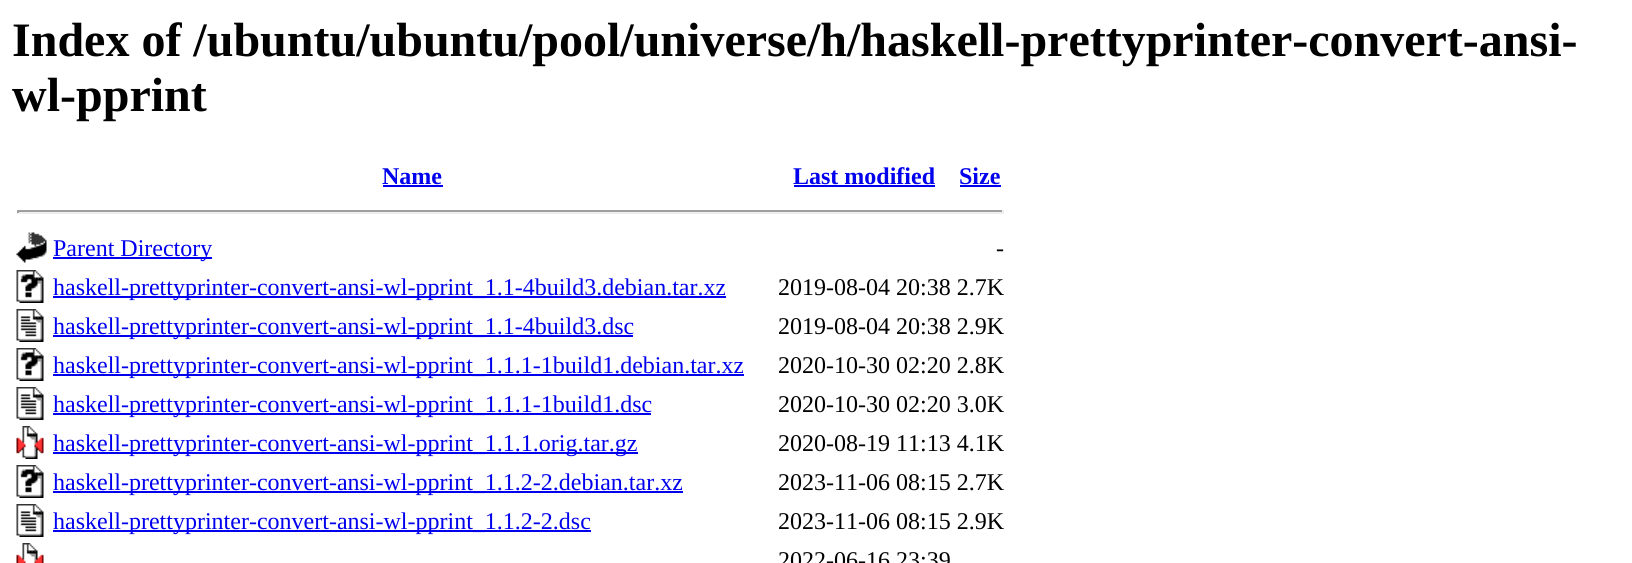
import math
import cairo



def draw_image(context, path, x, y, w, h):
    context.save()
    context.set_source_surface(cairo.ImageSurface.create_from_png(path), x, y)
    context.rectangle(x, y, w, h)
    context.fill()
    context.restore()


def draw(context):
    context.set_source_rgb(1, 1, 1)
    context.paint()
    context.set_source_rgb(0, 0, 238 / 255)
    context.rectangle(383, 185, 60, 2)
    context.fill()
    context.rectangle(794, 185, 141, 2)
    context.fill()
    context.rectangle(960, 185, 41, 2)
    context.fill()
    context.set_source_rgb(159 / 255, 159 / 255, 159 / 255)
    context.rectangle(17, 210, 987, 2)
    context.fill()
    context.set_source_rgb(238 / 255, 238 / 255, 238 / 255)
    context.rectangle(1002, 210, 2, 3)
    context.fill()
    context.rectangle(17, 212, 987, 2)
    context.fill()
    context.set_source_rgb(159 / 255, 159 / 255, 159 / 255)
    context.rectangle(17, 210, 2, 3)
    context.fill()
    draw_image(context, "images/1.png", 16, 232, 31, 31)
    context.set_source_rgb(0, 0, 238 / 255)
    context.rectangle(53, 257, 159, 2)
    context.fill()
    draw_image(context, "images/2.png", 16, 270, 28, 33)
    context.rectangle(53, 296, 673, 2)
    context.fill()
    draw_image(context, "images/3.png", 16, 309, 28, 33)
    context.rectangle(53, 335, 580, 2)
    context.fill()
    draw_image(context, "images/2.png", 16, 348, 28, 33)
    context.rectangle(53, 374, 691, 2)
    context.fill()
    draw_image(context, "images/3.png", 16, 387, 28, 33)
    context.rectangle(53, 413, 598, 2)
    context.fill()
    draw_image(context, "images/4.png", 16, 426, 28, 33)
    context.rectangle(53, 452, 585, 2)
    context.fill()
    draw_image(context, "images/2.png", 16, 465, 28, 33)
    context.rectangle(53, 491, 630, 2)
    context.fill()
    draw_image(context, "images/3.png", 16, 504, 28, 33)
    context.rectangle(53, 530, 538, 2)
    context.fill()
    draw_image(context, "images/5.png", 16, 543, 28, 20)
    context.select_font_face("Liberation Serif", cairo.FontSlant.NORMAL, cairo.FontWeight.BOLD)
    context.set_font_size(48)
    context.set_source_rgb(0, 0, 0)
    context.move_to(12, 56)
    context.show_text("Index of /ubuntu/ubuntu/pool/universe/h/haskell-prettyprinter-convert-ansi-")
    context.move_to(12, 111)
    context.show_text("wl-pprint")
    context.set_font_size(24)
    context.set_source_rgb(0, 0, 238 / 255)
    context.move_to(382, 184)
    context.show_text("Name")
    context.move_to(793, 184)
    context.show_text("Last modified")
    context.move_to(959, 184)
    context.show_text("Size")
    context.select_font_face("Liberation Serif")
    context.move_to(53, 256)
    context.show_text("Parent Directory")
    context.set_source_rgb(0, 0, 0)
    context.move_to(996, 256)
    context.show_text("-")
    context.set_source_rgb(0, 0, 238 / 255)
    context.move_to(53, 295)
    context.show_text("haskell-prettyprinter-convert-ansi-wl-pprint_1.1-4build3.debian.tar.xz")
    context.set_source_rgb(0, 0, 0)
    context.move_to(778, 295)
    context.show_text("2019-08-04 20:38 2.7K")
    context.set_source_rgb(0, 0, 238 / 255)
    context.move_to(53, 334)
    context.show_text("haskell-prettyprinter-convert-ansi-wl-pprint_1.1-4build3.dsc")
    context.set_source_rgb(0, 0, 0)
    context.move_to(778, 334)
    context.show_text("2019-08-04 20:38 2.9K")
    context.set_source_rgb(0, 0, 238 / 255)
    context.move_to(53, 373)
    context.show_text("haskell-prettyprinter-convert-ansi-wl-pprint_1.1.1-1build1.debian.tar.xz")
    context.set_source_rgb(0, 0, 0)
    context.move_to(778, 373)
    context.show_text("2020-10-30 02:20 2.8K")
    context.set_source_rgb(0, 0, 238 / 255)
    context.move_to(53, 412)
    context.show_text("haskell-prettyprinter-convert-ansi-wl-pprint_1.1.1-1build1.dsc")
    context.set_source_rgb(0, 0, 0)
    context.move_to(778, 412)
    context.show_text("2020-10-30 02:20 3.0K")
    context.set_source_rgb(0, 0, 238 / 255)
    context.move_to(53, 451)
    context.show_text("haskell-prettyprinter-convert-ansi-wl-pprint_1.1.1.orig.tar.gz")
    context.set_source_rgb(0, 0, 0)
    context.move_to(778, 451)
    context.show_text("2020-08-19 11:13 4.1K")
    context.set_source_rgb(0, 0, 238 / 255)
    context.move_to(53, 490)
    context.show_text("haskell-prettyprinter-convert-ansi-wl-pprint_1.1.2-2.debian.tar.xz")
    context.set_source_rgb(0, 0, 0)
    context.move_to(778, 490)
    context.show_text("2023-11-06 08:15 2.7K")
    context.set_source_rgb(0, 0, 238 / 255)
    context.move_to(53, 529)
    context.show_text("haskell-prettyprinter-convert-ansi-wl-pprint_1.1.2-2.dsc")
    context.set_source_rgb(0, 0, 0)
    context.move_to(778, 529)
    context.show_text("2023-11-06 08:15 2.9K")
    context.move_to(778, 568)
    context.show_text("2022-06-16 23:39")


surface = cairo.ImageSurface(cairo.Format.RGB24, 1632, 563)
context = cairo.Context(surface)
options = cairo.FontOptions()
options.set_hint_metrics(cairo.HintMetrics.OFF)
options.set_hint_style(cairo.HintStyle.NONE)
context.set_font_options(options)
context.set_miter_limit(4)
draw(context)
surface.write_to_png("out.png")
